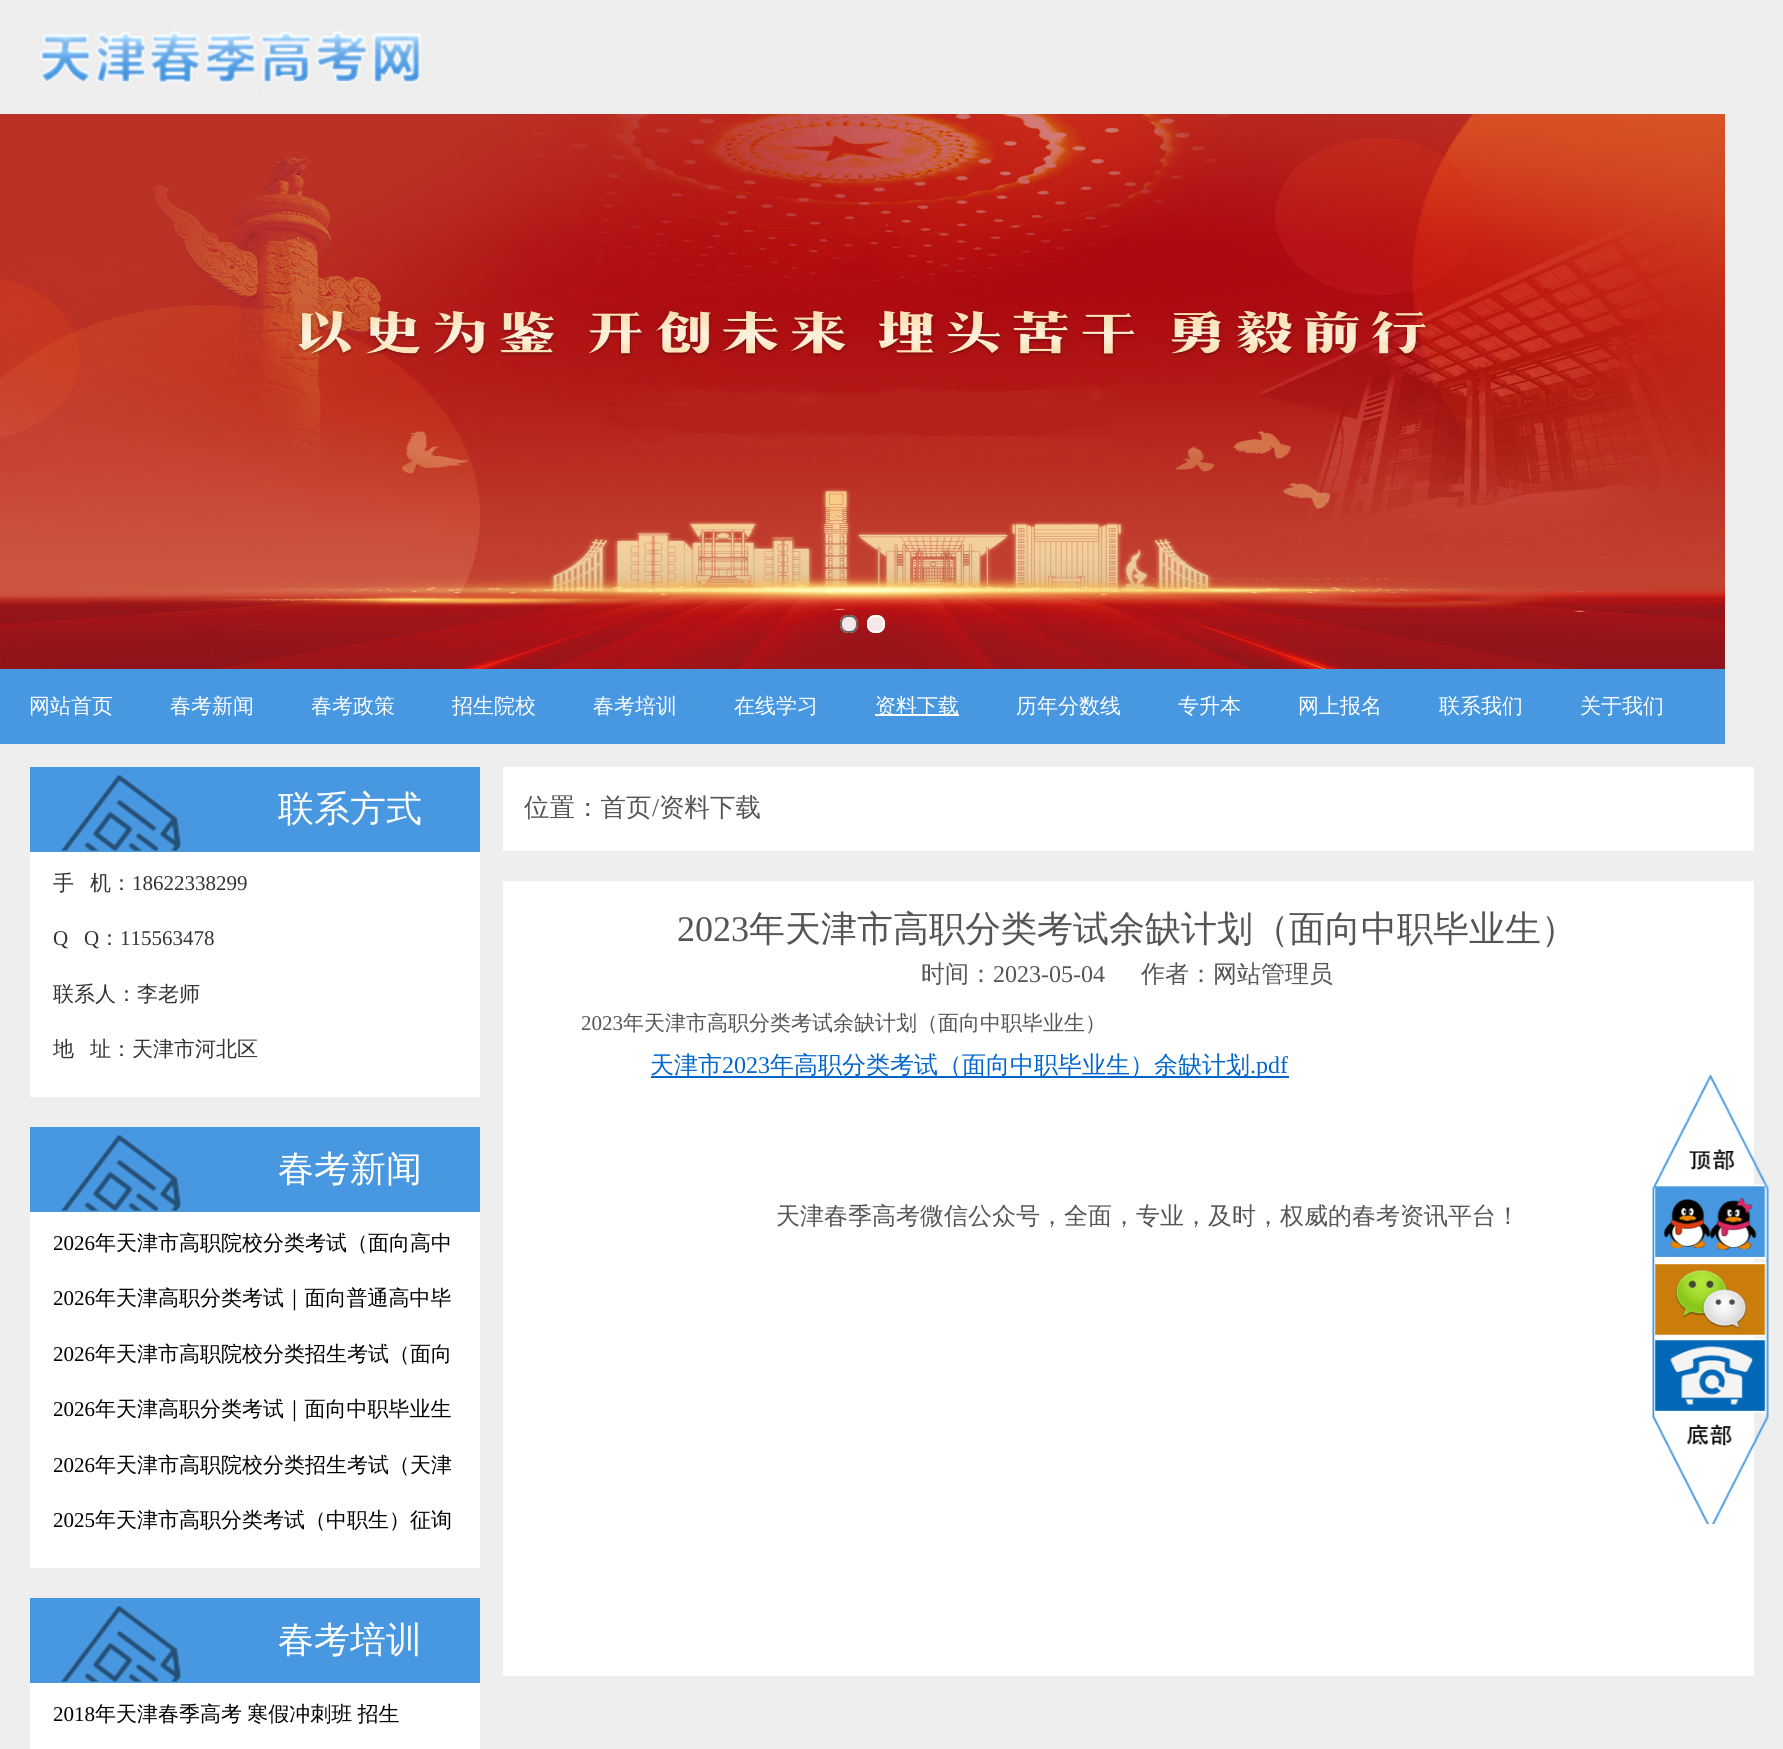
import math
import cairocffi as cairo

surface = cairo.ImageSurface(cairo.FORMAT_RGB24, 1783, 1749)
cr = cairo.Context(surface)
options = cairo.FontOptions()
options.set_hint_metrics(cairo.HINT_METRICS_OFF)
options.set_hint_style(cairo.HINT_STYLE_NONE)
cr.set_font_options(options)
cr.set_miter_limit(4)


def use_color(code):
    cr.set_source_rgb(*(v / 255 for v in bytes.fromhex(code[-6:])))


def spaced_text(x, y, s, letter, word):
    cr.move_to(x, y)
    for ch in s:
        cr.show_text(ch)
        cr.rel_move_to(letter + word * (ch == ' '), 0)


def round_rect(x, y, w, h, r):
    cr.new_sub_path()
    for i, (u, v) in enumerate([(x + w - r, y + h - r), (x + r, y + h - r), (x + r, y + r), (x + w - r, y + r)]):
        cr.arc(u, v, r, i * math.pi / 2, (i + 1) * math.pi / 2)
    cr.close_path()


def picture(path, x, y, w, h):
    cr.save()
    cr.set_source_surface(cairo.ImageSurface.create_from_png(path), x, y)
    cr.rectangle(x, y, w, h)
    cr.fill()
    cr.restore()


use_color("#eeeeee")
cr.paint()
picture("img1.png", 40, 31, 381, 63)
picture("img2.png", 0, 114, 1725, 555)
cr.set_source_rgba(1, 1, 1, 0.9)
round_rect(840, 615, 18, 18, 8)
cr.fill()
round_rect(841, 616, 16, 16, 7)
cr.set_source_rgba(0.333, 0.333, 0.333, 0.9)
cr.stroke()
cr.set_source_rgba(1, 1, 1, 0.9)
round_rect(867, 615, 18, 18, 8)
cr.fill()
round_rect(868, 616, 16, 16, 7)
cr.stroke()
use_color("#4898e1")
cr.rectangle(0, 669, 1725, 75)
cr.fill()
cr.select_font_face("WenQuanYi Zen Hei Medium")
cr.set_font_size(21)
use_color("#ffffff")
cr.move_to(29, 713)
cr.show_text("网站首页")
cr.move_to(170, 713)
cr.show_text("春考新闻")
cr.move_to(311, 713)
cr.show_text("春考政策")
cr.move_to(452, 713)
cr.show_text("招生院校")
cr.move_to(593, 713)
cr.show_text("春考培训")
cr.move_to(734, 713)
cr.show_text("在线学习")
cr.rectangle(875, 714, 84, 2)
cr.fill()
cr.move_to(875, 713)
cr.show_text("资料下载")
cr.move_to(1016, 713)
cr.show_text("历年分数线")
cr.move_to(1178, 713)
cr.show_text("专升本")
cr.move_to(1298, 713)
cr.show_text("网上报名")
cr.move_to(1439, 713)
cr.show_text("联系我们")
cr.move_to(1580, 713)
cr.show_text("关于我们")
cr.rectangle(30, 852, 450, 245)
cr.fill()
use_color("#4898e1")
cr.rectangle(30, 767, 450, 85)
cr.fill()
picture("img3.png", 61, 775, 121, 76)
cr.set_font_size(36)
use_color("#ffffff")
cr.move_to(278, 821)
cr.show_text("联系方式")
cr.set_font_size(21)
use_color("#333333")
cr.move_to(53, 890)
cr.show_text("手")
cr.move_to(90, 890)
cr.show_text("机：")
cr.select_font_face("Liberation Serif")
cr.move_to(132, 890)
cr.show_text("18622338299")
cr.move_to(53, 945)
cr.show_text("Q   Q")
cr.select_font_face("WenQuanYi Zen Hei Medium")
cr.move_to(99, 945)
cr.show_text("：")
cr.select_font_face("Liberation Serif")
cr.move_to(120, 945)
cr.show_text("115563478")
cr.select_font_face("WenQuanYi Zen Hei Medium")
cr.move_to(53, 1001)
cr.show_text("联系人：李老师")
cr.move_to(53, 1056)
cr.show_text("地")
cr.move_to(90, 1056)
cr.show_text("址：天津市河北区")
use_color("#ffffff")
cr.rectangle(30, 1212, 450, 356)
cr.fill()
use_color("#4898e1")
cr.rectangle(30, 1127, 450, 85)
cr.fill()
picture("img3.png", 61, 1135, 121, 76)
cr.set_font_size(36)
use_color("#ffffff")
cr.move_to(278, 1181)
cr.show_text("春考新闻")
cr.select_font_face("Liberation Serif")
cr.set_font_size(21)
use_color("#000000")
cr.move_to(53, 1250)
cr.show_text("2026")
cr.select_font_face("WenQuanYi Zen Hei Medium")
cr.move_to(95, 1250)
cr.show_text("年天津市高职院校分类考试（面向高中")
cr.select_font_face("Liberation Serif")
cr.move_to(53, 1305)
cr.show_text("2026")
cr.select_font_face("WenQuanYi Zen Hei Medium")
cr.move_to(95, 1305)
cr.show_text("年天津高职分类考试｜面向普通高中毕")
cr.select_font_face("Liberation Serif")
cr.move_to(53, 1361)
cr.show_text("2026")
cr.select_font_face("WenQuanYi Zen Hei Medium")
cr.move_to(95, 1361)
cr.show_text("年天津市高职院校分类招生考试（面向")
cr.select_font_face("Liberation Serif")
cr.move_to(53, 1416)
cr.show_text("2026")
cr.select_font_face("WenQuanYi Zen Hei Medium")
cr.move_to(95, 1416)
cr.show_text("年天津高职分类考试｜面向中职毕业生")
cr.select_font_face("Liberation Serif")
cr.move_to(53, 1472)
cr.show_text("2026")
cr.select_font_face("WenQuanYi Zen Hei Medium")
cr.move_to(95, 1472)
cr.show_text("年天津市高职院校分类招生考试（天津")
cr.select_font_face("Liberation Serif")
cr.move_to(53, 1527)
cr.show_text("2025")
cr.select_font_face("WenQuanYi Zen Hei Medium")
cr.move_to(95, 1527)
cr.show_text("年天津市高职分类考试（中职生）征询")
use_color("#ffffff")
cr.rectangle(30, 1683, 450, 66)
cr.fill()
use_color("#4898e1")
cr.rectangle(30, 1598, 450, 85)
cr.fill()
picture("img3.png", 61, 1606, 121, 76)
cr.set_font_size(36)
use_color("#ffffff")
cr.move_to(278, 1652)
cr.show_text("春考培训")
cr.select_font_face("Liberation Serif")
cr.set_font_size(21)
use_color("#000000")
cr.move_to(53, 1721)
cr.show_text("2018")
cr.select_font_face("WenQuanYi Zen Hei Medium")
spaced_text(95, 1721, "年天津春季高考 寒假冲刺班 招生", 0, -1)
use_color("#ffffff")
cr.rectangle(503, 767, 1251, 84)
cr.fill()
cr.set_font_size(25.5)
use_color("#555555")
cr.move_to(524, 816)
cr.show_text("位置：首页")
cr.select_font_face("Liberation Serif")
cr.move_to(652, 816)
cr.show_text("/")
cr.select_font_face("WenQuanYi Zen Hei Medium")
cr.move_to(659, 816)
cr.show_text("资料下载")
use_color("#ffffff")
cr.rectangle(503, 881, 1251, 795)
cr.fill()
cr.select_font_face("Liberation Serif")
cr.set_font_size(36)
use_color("#555555")
cr.move_to(677, 941)
cr.show_text("2023")
cr.select_font_face("WenQuanYi Zen Hei Medium")
cr.move_to(749, 941)
cr.show_text("年天津市高职分类考试余缺计划（面向中职毕业生）")
cr.set_font_size(24)
cr.move_to(921, 982)
cr.show_text("时间：")
cr.select_font_face("Liberation Serif")
cr.move_to(993, 982)
cr.show_text("2023-05-04")
cr.select_font_face("WenQuanYi Zen Hei Medium")
cr.move_to(1141, 982)
cr.show_text("作者：网站管理员")
cr.select_font_face("Liberation Serif")
cr.set_font_size(21)
cr.move_to(581, 1030)
cr.show_text("2023")
cr.select_font_face("WenQuanYi Zen Hei Medium")
cr.move_to(623, 1030)
cr.show_text("年天津市高职分类考试余缺计划（面向中职毕业生）")
cr.set_font_size(24)
use_color("#0066cc")
cr.move_to(650, 1073)
cr.show_text("天津市")
cr.select_font_face("Liberation Serif")
cr.move_to(722, 1073)
cr.show_text("2023")
cr.rectangle(651, 1076, 638, 2)
cr.fill()
cr.select_font_face("WenQuanYi Zen Hei Medium")
cr.move_to(770, 1073)
cr.show_text("年高职分类考试（面向中职毕业生）余缺计划")
cr.select_font_face("Liberation Serif")
cr.move_to(1250, 1073)
cr.show_text(".pdf")
cr.select_font_face("WenQuanYi Zen Hei Medium")
use_color("#555555")
cr.move_to(776, 1224)
cr.show_text("天津春季高考微信公众号，全面，专业，及时，权威的春考资讯平台！")
picture("img4.png", 1652, 1074, 117, 450)
surface.write_to_png("result.png")
